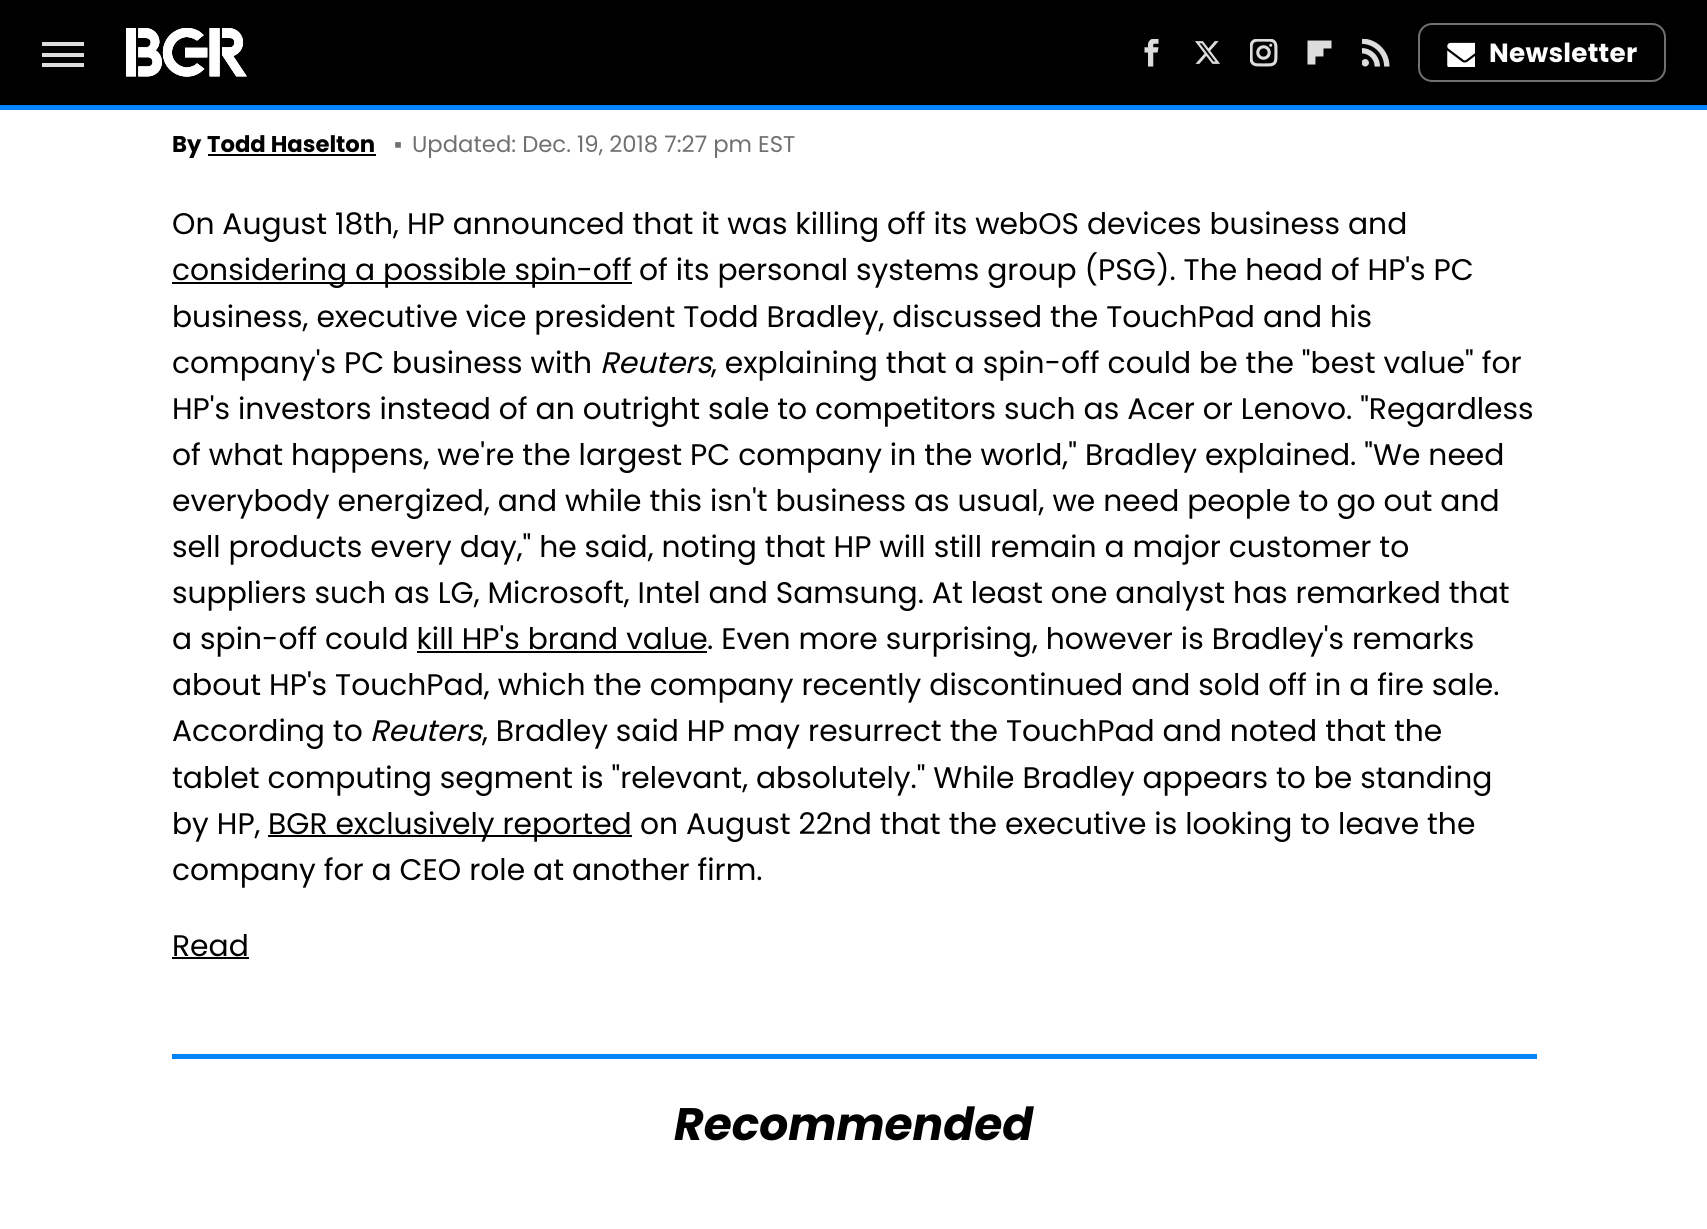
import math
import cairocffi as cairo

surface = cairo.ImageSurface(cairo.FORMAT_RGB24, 1707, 1229)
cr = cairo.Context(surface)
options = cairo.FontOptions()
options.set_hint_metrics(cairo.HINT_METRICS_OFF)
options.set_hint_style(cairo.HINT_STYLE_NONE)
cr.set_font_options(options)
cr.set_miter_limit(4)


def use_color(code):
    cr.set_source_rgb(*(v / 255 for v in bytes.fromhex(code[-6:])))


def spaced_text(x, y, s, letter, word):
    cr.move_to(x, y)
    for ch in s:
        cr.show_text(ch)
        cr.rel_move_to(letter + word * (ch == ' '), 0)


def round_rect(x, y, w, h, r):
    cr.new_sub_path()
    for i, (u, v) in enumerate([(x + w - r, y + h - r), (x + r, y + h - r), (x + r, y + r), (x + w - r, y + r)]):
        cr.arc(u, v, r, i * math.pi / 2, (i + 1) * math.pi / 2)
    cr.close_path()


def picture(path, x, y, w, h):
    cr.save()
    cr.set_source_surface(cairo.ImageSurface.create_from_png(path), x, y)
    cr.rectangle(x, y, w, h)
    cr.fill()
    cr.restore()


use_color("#ffffff")
cr.paint()
use_color("#000000")
cr.rectangle(0, 0, 1707, 105)
cr.fill()
use_color("#0284ff")
cr.rectangle(0, 105, 1707, 5)
cr.fill()
use_color("#dddddd")
cr.rectangle(42, 42, 42, 4)
cr.fill()
cr.rectangle(42, 53, 42, 4)
cr.fill()
cr.rectangle(42, 63, 42, 4)
cr.fill()
picture("img1.png", 126, 28, 121, 49)
picture("img2.png", 1144, 39, 15, 28)
picture("img3.png", 1195, 41, 25, 23)
picture("img4.png", 1250, 39, 28, 28)
picture("img5.png", 1307, 40, 25, 25)
picture("img6.png", 1362, 39, 28, 28)
round_rect(1419, 24, 246, 57, 13)
use_color("#707070")
cr.stroke()
picture("img7.png", 1447, 42, 28, 25)
cr.select_font_face("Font", cairo.FONT_SLANT_NORMAL, cairo.FONT_WEIGHT_BOLD)
cr.set_font_size(26.25)
use_color("#ffffff")
spaced_text(1489, 62, "Newsletter", 0.25, 0)
cr.set_font_size(22.75)
use_color("#000000")
cr.move_to(172, 152)
cr.show_text("By")
cr.move_to(207, 152)
cr.show_text("Todd Haselton")
cr.rectangle(208, 154, 168, 2)
cr.fill()
cr.select_font_face("Liberation Sans")
use_color("#707070")
cr.move_to(394, 152)
cr.show_text("▪")
cr.select_font_face("poppins")
cr.move_to(412, 152)
cr.show_text("Updated: Dec. 19, 2018 7:27 pm EST")
cr.set_font_size(29.75)
use_color("#000000")
cr.move_to(172, 234)
cr.show_text("On August 18th, HP announced that it was killing off its webOS devices business and")
cr.rectangle(172, 282, 460, 2)
cr.fill()
cr.move_to(172, 280)
cr.show_text("considering a possible spin-off")
cr.move_to(639, 280)
cr.show_text("of its personal systems group (PSG). The head of HP's PC")
cr.move_to(172, 327)
cr.show_text("business, executive vice president Todd Bradley, discussed the TouchPad and his")
cr.move_to(172, 373)
cr.show_text("company's PC business with")
cr.select_font_face("poppins", cairo.FONT_SLANT_ITALIC)
cr.move_to(600, 373)
cr.show_text("Reuters")
cr.select_font_face("poppins")
cr.move_to(711, 373)
cr.show_text(", explaining that a spin-off could be the \"best value\" for")
cr.move_to(172, 419)
cr.show_text("HP's investors instead of an outright sale to competitors such as Acer or Lenovo. \"Regardless")
cr.move_to(172, 465)
cr.show_text("of what happens, we're the largest PC company in the world,\" Bradley explained. \"We need")
cr.move_to(172, 511)
cr.show_text("everybody energized, and while this isn't business as usual, we need people to go out and")
cr.move_to(172, 557)
cr.show_text("sell products every day,\" he said, noting that HP will still remain a major customer to")
cr.move_to(172, 603)
cr.show_text("suppliers such as LG, Microsoft, Intel and Samsung. At least one analyst has remarked that")
cr.move_to(172, 649)
cr.show_text("a spin-off could kill HP's brand value")
cr.move_to(707, 649)
cr.show_text(". Even more surprising, however is Bradley's remarks")
cr.rectangle(417, 651, 290, 2)
cr.fill()
cr.move_to(172, 695)
cr.show_text("about HP's TouchPad, which the company recently discontinued and sold off in a fire sale.")
cr.move_to(172, 741)
cr.show_text("According to")
cr.select_font_face("poppins", cairo.FONT_SLANT_ITALIC)
cr.move_to(370, 741)
cr.show_text("Reuters")
cr.select_font_face("poppins")
cr.move_to(482, 741)
cr.show_text(", Bradley said HP may resurrect the TouchPad and noted that the")
cr.move_to(172, 788)
cr.show_text("tablet computing segment is \"relevant, absolutely.\" While Bradley appears to be standing")
cr.move_to(172, 834)
cr.show_text("by HP,")
cr.rectangle(268, 835, 364, 2)
cr.fill()
cr.move_to(268, 834)
cr.show_text("BGR exclusively reported")
cr.move_to(640, 834)
cr.show_text("on August 22nd that the executive is looking to leave the")
cr.move_to(172, 880)
cr.show_text("company for a CEO role at another firm.")
cr.move_to(172, 956)
cr.show_text("Read")
cr.rectangle(172, 957, 77, 2)
cr.fill()
use_color("#0284ff")
cr.rectangle(172, 1054, 1365, 5)
cr.fill()
cr.select_font_face("poppins", cairo.FONT_SLANT_ITALIC, cairo.FONT_WEIGHT_BOLD)
cr.set_font_size(45.5)
use_color("#000000")
cr.move_to(674, 1140)
cr.show_text("Recommended")
surface.write_to_png("result.png")
